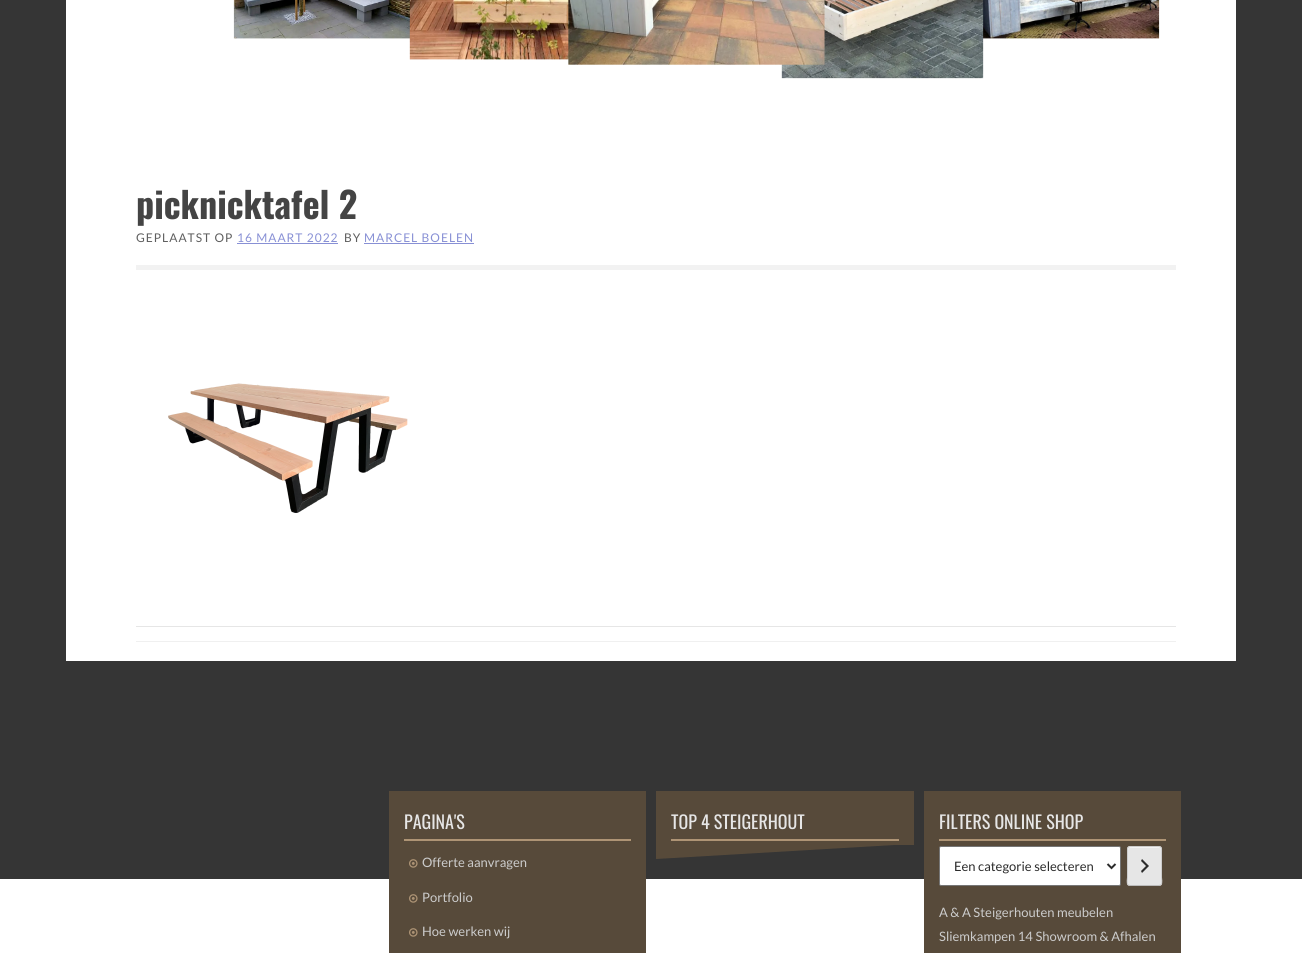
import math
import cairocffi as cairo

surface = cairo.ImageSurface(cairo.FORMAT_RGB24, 1302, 953)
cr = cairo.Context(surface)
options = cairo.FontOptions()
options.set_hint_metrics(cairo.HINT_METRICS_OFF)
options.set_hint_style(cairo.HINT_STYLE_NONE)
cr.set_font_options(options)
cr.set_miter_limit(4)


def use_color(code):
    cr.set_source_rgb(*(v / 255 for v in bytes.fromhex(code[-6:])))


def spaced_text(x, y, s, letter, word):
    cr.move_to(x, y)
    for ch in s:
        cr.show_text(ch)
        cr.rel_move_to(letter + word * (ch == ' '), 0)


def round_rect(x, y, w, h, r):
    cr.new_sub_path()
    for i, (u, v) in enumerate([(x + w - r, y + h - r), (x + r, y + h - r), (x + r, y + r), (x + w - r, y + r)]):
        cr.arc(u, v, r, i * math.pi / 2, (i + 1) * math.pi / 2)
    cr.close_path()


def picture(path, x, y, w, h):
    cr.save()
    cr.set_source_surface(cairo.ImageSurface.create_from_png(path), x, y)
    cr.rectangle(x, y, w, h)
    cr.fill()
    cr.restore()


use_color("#353535")
cr.paint()
use_color("#ffffff")
cr.rectangle(66, 0, 1170, 661)
cr.fill()
picture("img1.png", 233, 0, 177, 39)
picture("img2.png", 409, 0, 160, 60)
picture("img5.png", 983, 0, 177, 39)
picture("img4.png", 781, 0, 203, 79)
picture("img3.png", 568, 0, 257, 65)
cr.select_font_face("Oswald", cairo.FONT_SLANT_NORMAL, cairo.FONT_WEIGHT_BOLD)
cr.set_font_size(36)
use_color("#444444")
cr.move_to(136, 219)
cr.show_text("picknicktafel 2")
cr.select_font_face("Lato")
cr.set_font_size(12)
use_color("#5e5e5e")
spaced_text(136, 242, "GEPLAATST OP", 1, 0)
use_color("#8890d5")
spaced_text(237, 242, "16 MAART 2022", 1, 0)
cr.rectangle(237, 243, 101, 1)
cr.fill()
use_color("#5e5e5e")
spaced_text(344, 242, "BY", 1, 0)
use_color("#8890d5")
spaced_text(364, 242, "MARCEL BOELEN", 1, 0)
cr.rectangle(364, 243, 110, 1)
cr.fill()
use_color("#f2f2f2")
cr.rectangle(136, 265, 1040, 5)
cr.fill()
picture("img6.png", 168, 383, 240, 130)
use_color("#e6e6e6")
cr.rectangle(136, 626, 1040, 1)
cr.fill()
use_color("#f0f0f0")
cr.rectangle(136, 641, 1040, 1)
cr.fill()
use_color("#ffffff")
cr.rectangle(0, 879, 1302, 74)
cr.fill()
use_color("#574a3a")
cr.rectangle(389, 791, 257, 162)
cr.fill()
cr.select_font_face("Oswald")
cr.set_font_size(18)
use_color("#e6e6e6")
cr.move_to(404, 829)
cr.show_text("PAGINA'S")
use_color("#ae9475")
cr.rectangle(404, 839, 227, 2)
cr.fill()
picture("img7.png", 409, 859, 9, 9)
cr.select_font_face("Lato")
cr.set_font_size(13)
use_color("#cccccc")
cr.move_to(422, 867)
cr.show_text("Offerte aanvragen")
picture("img7.png", 409, 894, 9, 9)
cr.move_to(422, 902)
cr.show_text("Portfolio")
picture("img7.png", 409, 928, 9, 9)
cr.move_to(422, 936)
cr.show_text("Hoe werken wij")
use_color("#574a3a")
cr.rectangle(656, 791, 258, 54)
cr.fill()
cr.select_font_face("Oswald")
cr.set_font_size(18)
use_color("#e6e6e6")
cr.move_to(671, 829)
cr.show_text("TOP 4 STEIGERHOUT")
use_color("#ae9475")
cr.rectangle(671, 839, 228, 2)
cr.fill()
use_color("#574a3a")
cr.new_path()
cr.move_to(656, 845)
cr.line_to(894, 845)
cr.line_to(656, 859)
cr.close_path()
cr.fill()
cr.rectangle(924, 791, 257, 162)
cr.fill()
use_color("#e6e6e6")
cr.move_to(939, 829)
cr.show_text("FILTERS ONLINE SHOP")
use_color("#ae9475")
cr.rectangle(939, 839, 227, 2)
cr.fill()
use_color("#ffffff")
round_rect(939.5, 846.5, 181, 39, 1.5)
cr.fill_preserve()
use_color("#767676")
cr.set_line_width(1)
cr.stroke()
cr.new_path()
cr.move_to(1107.5, 864)
cr.line_to(1111.5, 868)
cr.line_to(1115.5, 864)
use_color("#2b2b2b")
cr.set_line_width(2)
cr.stroke()
cr.select_font_face("Lato")
cr.set_font_size(13)
cr.move_to(954, 871)
cr.show_text("Een categorie selecteren")
use_color("#e6e6e6")
round_rect(1127, 846, 35, 40, 3)
cr.fill()
use_color("#f3f3f3")
cr.new_path()
cr.move_to(1130, 847)
cr.curve_to(1128, 847, 1128, 848.5, 1128, 850)
cr.line_to(1129, 848)
cr.line_to(1160, 848)
cr.line_to(1161, 850)
cr.curve_to(1161, 848.5, 1161, 847, 1159, 847)
cr.close_path()
cr.fill()
cr.new_path()
cr.move_to(1161, 885)
cr.curve_to(1160.5, 885, 1159.5, 885.5, 1159, 885.5)
cr.line_to(1130, 885.5)
cr.curve_to(1129.5, 885.5, 1128.5, 885, 1128, 885)
use_color("#bbbbbb")
cr.set_line_width(1)
cr.stroke()
cr.new_path()
cr.move_to(1128, 885)
cr.curve_to(1126.5, 883, 1127.5, 878, 1127.5, 877.5)
cr.line_to(1127.5, 854.5)
cr.curve_to(1127.5, 846, 1126.5, 846.5, 1135, 846.5)
cr.line_to(1154, 846.5)
cr.curve_to(1162.5, 846.5, 1161.5, 846, 1161.5, 854.5)
cr.line_to(1161.5, 877.5)
cr.curve_to(1161.5, 878, 1162.5, 883, 1161, 885)
use_color("#cccccc")
cr.stroke()
picture("img8.png", 1141, 859, 8, 14)
cr.move_to(939, 917)
cr.show_text("A & A Steigerhouten meubelen")
cr.move_to(939, 941)
cr.show_text("Sliemkampen 14 Showroom & Afhalen")
surface.write_to_png("result.png")
